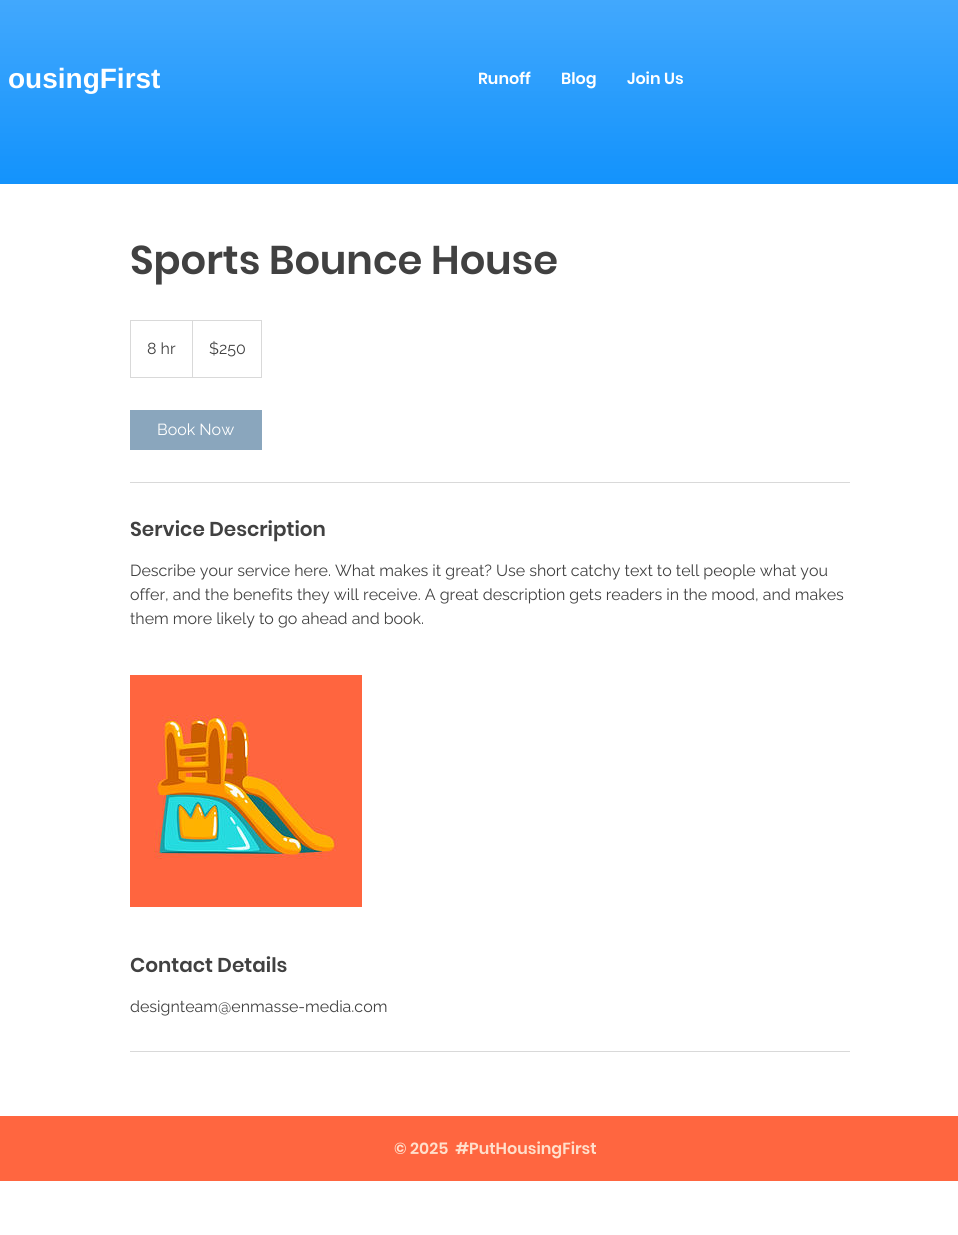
import math
import cairocffi as cairo

surface = cairo.ImageSurface(cairo.FORMAT_RGB24, 958, 1235)
cr = cairo.Context(surface)
options = cairo.FontOptions()
options.set_hint_metrics(cairo.HINT_METRICS_OFF)
options.set_hint_style(cairo.HINT_STYLE_NONE)
cr.set_font_options(options)
cr.set_miter_limit(4)


def use_color(code):
    cr.set_source_rgb(*(v / 255 for v in bytes.fromhex(code[-6:])))


def picture(path, x, y, w, h):
    cr.save()
    cr.set_source_surface(cairo.ImageSurface.create_from_png(path), x, y)
    cr.rectangle(x, y, w, h)
    cr.fill()
    cr.restore()


use_color("#ffffff")
cr.paint()
use_color("#008afc")
cr.rectangle(0, 0, 958, 184)
cr.fill()
picture("img1.png", 0, 0, 958, 184)
cr.select_font_face("Liberation Sans", cairo.FONT_SLANT_NORMAL, cairo.FONT_WEIGHT_BOLD)
cr.set_font_size(28)
use_color("#ffffff")
cr.move_to(8, 88)
cr.show_text("ousingFirst")
cr.select_font_face("Poppins SemiBold")
cr.set_font_size(16)
cr.move_to(478, 84)
cr.show_text("Runoff")
cr.move_to(561, 84)
cr.show_text("Blog")
cr.move_to(627, 84)
cr.show_text("Join Us")
cr.set_font_size(40)
use_color("#414141")
cr.move_to(130, 274)
cr.show_text("Sports Bounce House")
cr.rectangle(130.5, 320.5, 131, 57)
use_color("#d9d9d9")
cr.set_line_width(1)
cr.stroke()
cr.select_font_face("Raleway")
cr.set_font_size(16)
use_color("#414141")
cr.move_to(147, 354)
cr.show_text("8 hr")
use_color("#d9d9d9")
cr.new_path()
cr.move_to(192, 377)
cr.line_to(192, 320)
cr.line_to(193, 321)
cr.line_to(193, 377)
cr.close_path()
cr.fill()
use_color("#414141")
cr.move_to(209, 354)
cr.show_text("$250")
use_color("#8aa6bd")
cr.rectangle(130, 410, 132, 40)
cr.fill()
use_color("#ffffff")
cr.move_to(157, 435)
cr.show_text("Book Now")
use_color("#d9d9d9")
cr.rectangle(130, 482, 720, 1)
cr.fill()
cr.select_font_face("Poppins SemiBold")
cr.set_font_size(20)
use_color("#414141")
cr.move_to(130, 536)
cr.show_text("Service Description")
cr.select_font_face("Raleway")
cr.set_font_size(16)
cr.move_to(130, 576)
cr.show_text("Describe your service here. What makes it great? Use short catchy text to tell people what you")
cr.move_to(130, 600)
cr.show_text("offer, and the benefits they will receive. A great description gets readers in the mood, and makes")
cr.move_to(130, 624)
cr.show_text("them more likely to go ahead and book.")
picture("img2.png", 130, 675, 232, 232)
picture("img3.png", 152, 712, 186, 149)
cr.select_font_face("Poppins SemiBold")
cr.set_font_size(20)
cr.move_to(130, 972)
cr.show_text("Contact Details")
cr.select_font_face("Raleway")
cr.set_font_size(16)
cr.move_to(130, 1012)
cr.show_text("designteam@enmasse-media.com")
use_color("#d9d9d9")
cr.rectangle(130, 1051, 720, 1)
cr.fill()
use_color("#ff6640")
cr.rectangle(0, 1116, 958, 65)
cr.fill()
cr.select_font_face("Poppins SemiBold")
use_color("#ffdfcb")
cr.move_to(394, 1154)
cr.show_text("© 2025  #PutHousingFirst")
surface.write_to_png("result.png")
